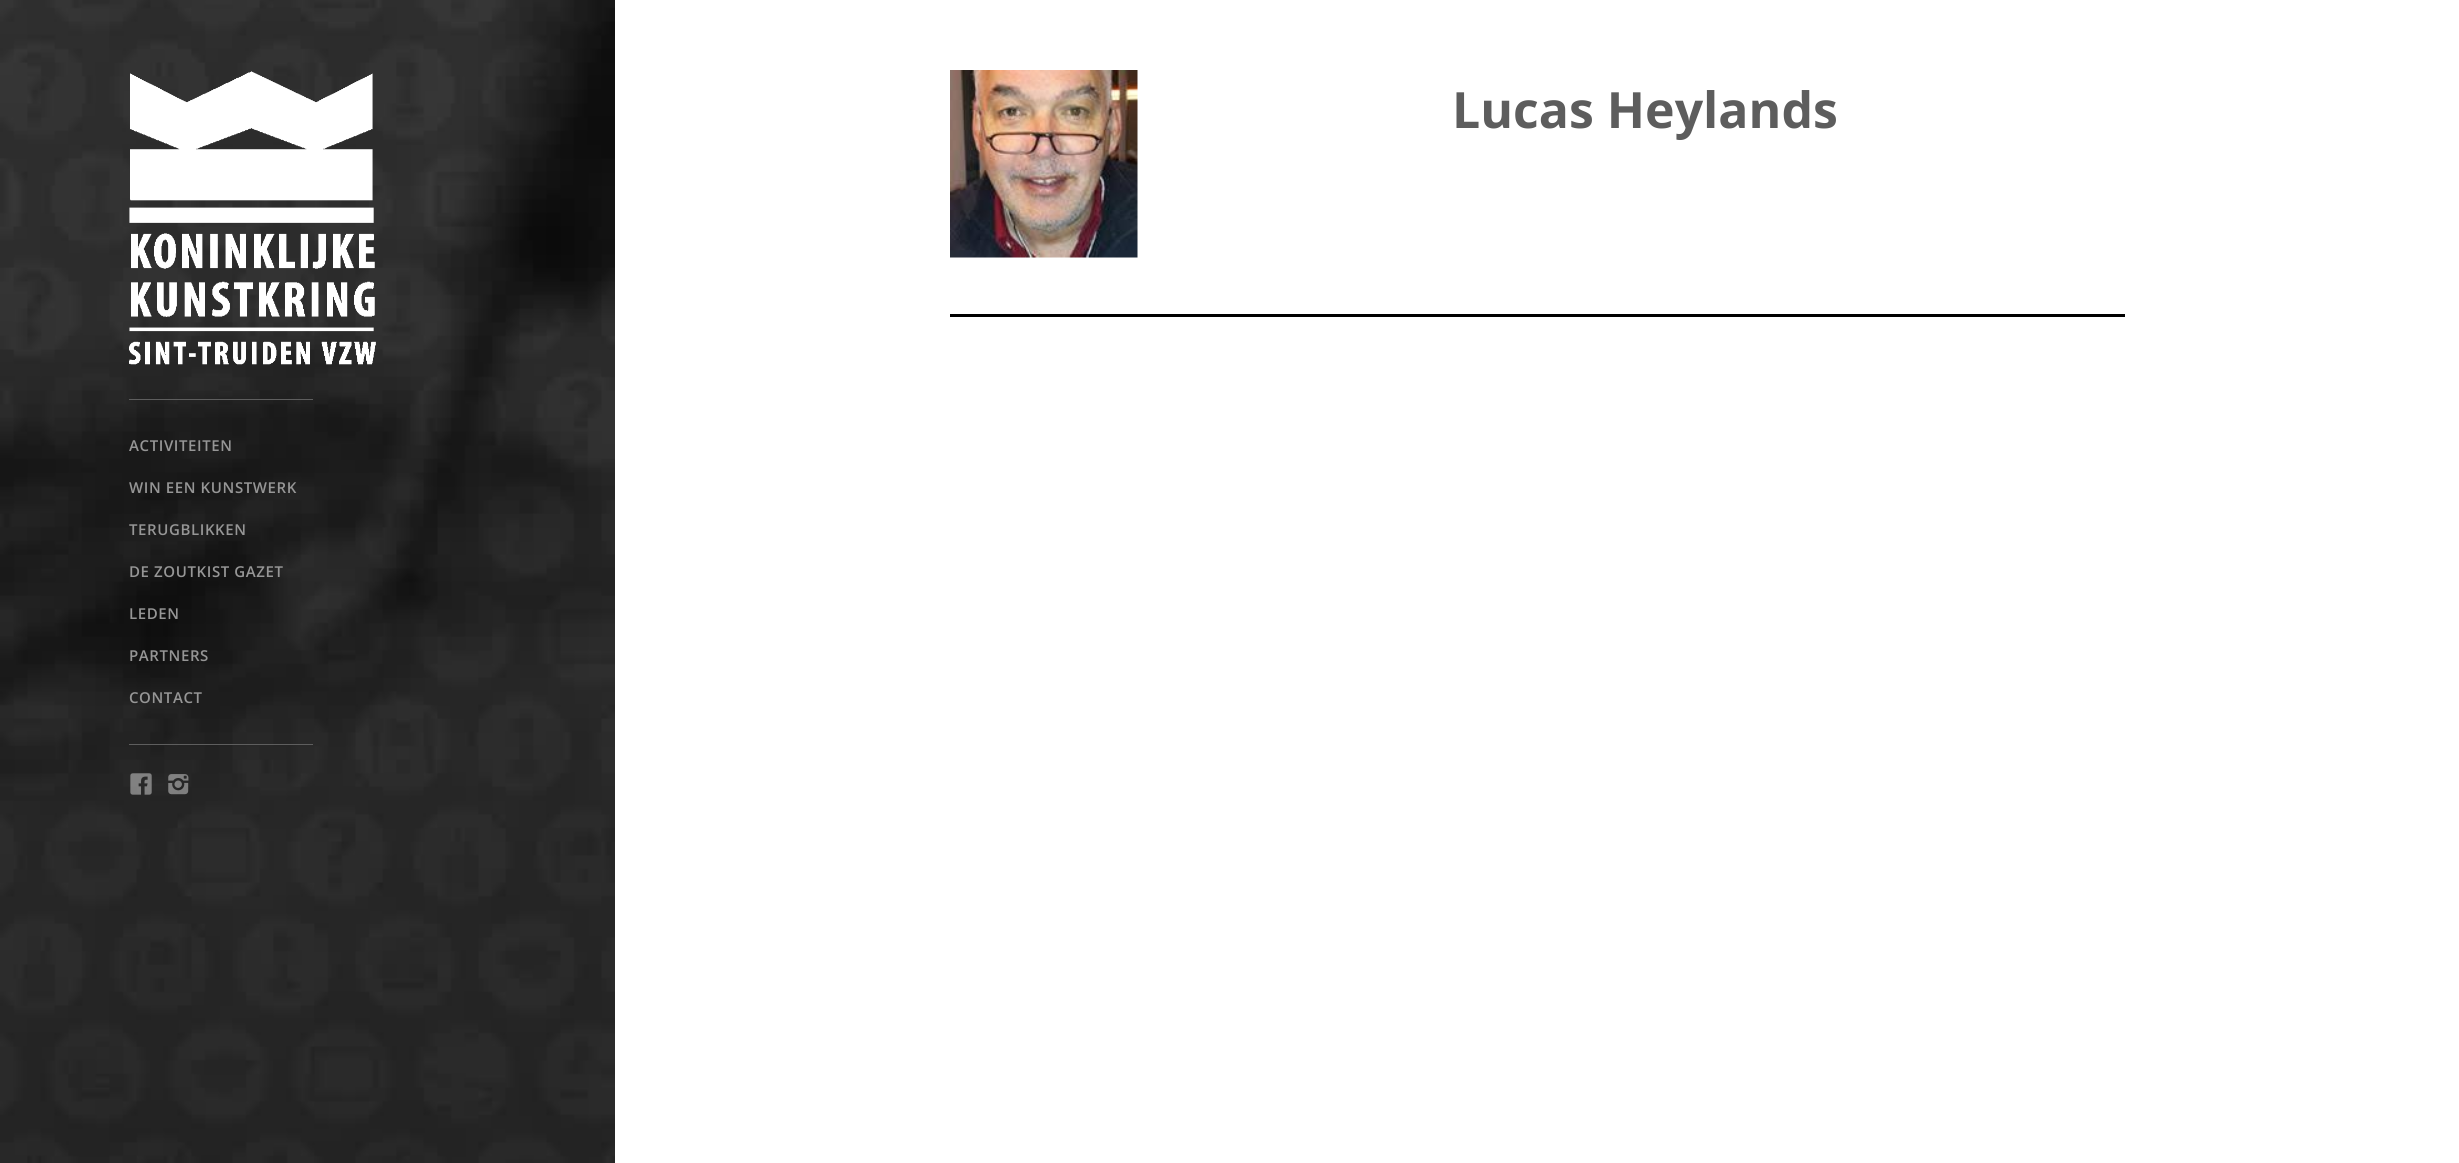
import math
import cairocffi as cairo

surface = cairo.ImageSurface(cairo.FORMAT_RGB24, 2459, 1163)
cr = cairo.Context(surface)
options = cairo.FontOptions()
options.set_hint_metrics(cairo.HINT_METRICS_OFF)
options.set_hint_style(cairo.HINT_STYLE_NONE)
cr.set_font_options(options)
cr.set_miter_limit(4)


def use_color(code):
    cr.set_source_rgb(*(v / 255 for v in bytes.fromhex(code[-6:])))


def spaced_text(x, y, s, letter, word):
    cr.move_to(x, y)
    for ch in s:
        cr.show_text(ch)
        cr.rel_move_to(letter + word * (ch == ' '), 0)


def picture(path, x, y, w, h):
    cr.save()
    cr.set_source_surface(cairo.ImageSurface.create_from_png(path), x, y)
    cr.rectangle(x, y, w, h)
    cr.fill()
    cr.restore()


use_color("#ffffff")
cr.paint()
use_color("#000000")
cr.rectangle(950, 314, 1175, 3)
cr.fill()
picture("img1.png", 950, 70, 188, 188)
cr.select_font_face("Open Sans", cairo.FONT_SLANT_NORMAL, cairo.FONT_WEIGHT_BOLD)
cr.set_font_size(50)
use_color("#5d5d5d")
cr.move_to(1452, 128)
cr.show_text("Lucas Heylands")
picture("img2.png", 0, 0, 615, 1163)
picture("img3.png", 129, 71, 247, 294)
use_color("#5e5e5e")
cr.rectangle(129, 399, 184, 1)
cr.fill()
cr.select_font_face("Open Sans SemiBold")
cr.set_font_size(15)
use_color("#969696")
spaced_text(129, 451, "ACTIVITEITEN", 0.6, 0)
spaced_text(129, 493, "WIN EEN KUNSTWERK", 0.6, 0)
spaced_text(129, 535, "TERUGBLIKKEN", 0.6, 0)
spaced_text(129, 577, "DE ZOUTKIST GAZET", 0.6, 0)
spaced_text(129, 619, "LEDEN", 0.6, 0)
spaced_text(129, 661, "PARTNERS", 0.6, 0)
spaced_text(129, 703, "CONTACT", 0.6, 0)
use_color("#5e5e5e")
cr.rectangle(129, 744, 184, 1)
cr.fill()
picture("img4.png", 130, 773, 22, 22)
picture("img5.png", 168, 774, 21, 21)
surface.write_to_png("result.png")
